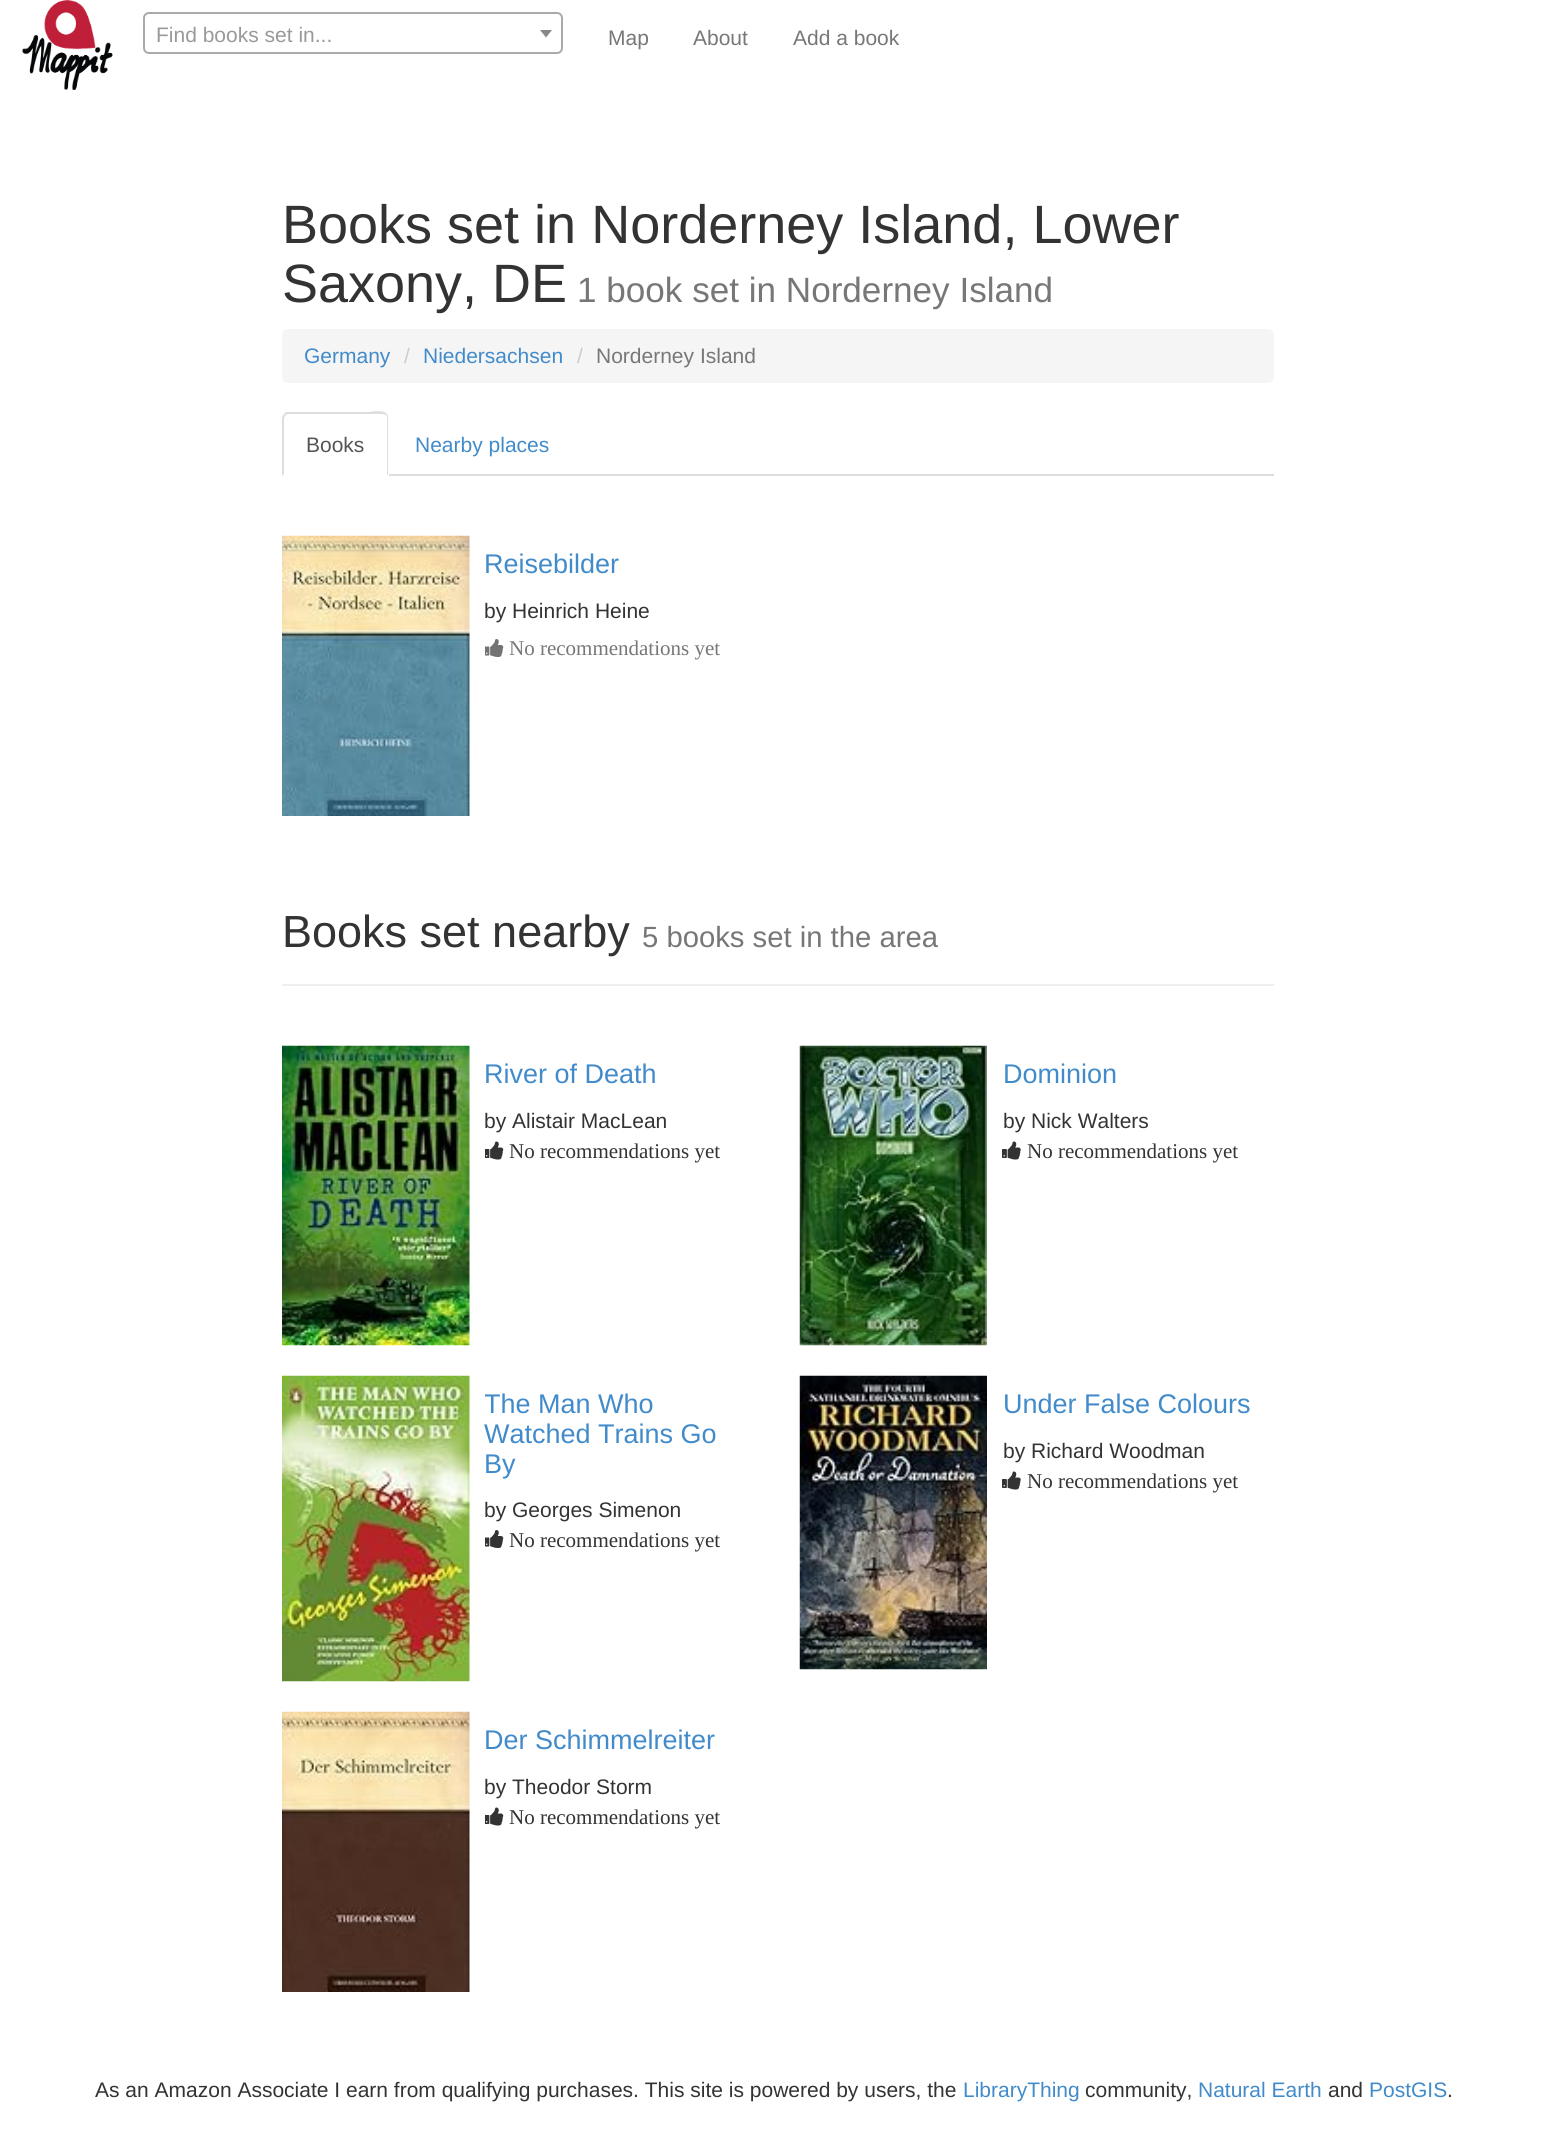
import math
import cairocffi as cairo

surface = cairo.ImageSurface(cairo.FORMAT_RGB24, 1555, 2134)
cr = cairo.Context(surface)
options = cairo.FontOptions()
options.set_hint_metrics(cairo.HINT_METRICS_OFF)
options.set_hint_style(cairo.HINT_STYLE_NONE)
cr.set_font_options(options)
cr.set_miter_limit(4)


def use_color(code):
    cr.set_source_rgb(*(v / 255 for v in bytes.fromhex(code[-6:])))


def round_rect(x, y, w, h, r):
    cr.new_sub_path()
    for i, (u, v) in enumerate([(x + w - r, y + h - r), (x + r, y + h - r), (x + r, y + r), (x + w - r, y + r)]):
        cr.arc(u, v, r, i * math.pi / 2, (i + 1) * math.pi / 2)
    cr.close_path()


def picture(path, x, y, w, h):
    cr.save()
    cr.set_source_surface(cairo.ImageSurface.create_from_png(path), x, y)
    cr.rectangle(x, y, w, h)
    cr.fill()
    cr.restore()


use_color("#ffffff")
cr.paint()
picture("img1.png", 22, 0, 91, 90)
round_rect(144, 13, 418, 40, 5)
use_color("#aaaaaa")
cr.stroke()
cr.select_font_face("Liberation Sans")
cr.set_font_size(21)
use_color("#999999")
cr.move_to(156, 42)
cr.show_text("Find books set in...")
use_color("#888888")
cr.new_path()
cr.move_to(540, 30)
cr.line_to(552, 30)
cr.line_to(546, 37.5)
cr.close_path()
cr.fill()
use_color("#777777")
cr.move_to(608, 45)
cr.show_text("Map")
cr.move_to(693, 45)
cr.show_text("About")
cr.move_to(793, 45)
cr.show_text("Add a book")
cr.set_font_size(54)
use_color("#333333")
cr.move_to(282, 243)
cr.show_text("Books set in Norderney Island, Lower")
cr.move_to(282, 302)
cr.show_text("Saxony, DE")
cr.set_font_size(35.1)
use_color("#777777")
cr.move_to(577, 302)
cr.show_text("1 book set in Norderney Island")
use_color("#f5f5f5")
round_rect(282, 329, 992, 54, 6)
cr.fill()
cr.set_font_size(21)
use_color("#428bca")
cr.move_to(304, 363)
cr.show_text("Germany")
use_color("#cccccc")
cr.move_to(404, 363)
cr.show_text("/")
use_color("#428bca")
cr.move_to(423, 363)
cr.show_text("Niedersachsen")
use_color("#cccccc")
cr.move_to(577, 363)
cr.show_text("/")
use_color("#777777")
cr.move_to(596, 363)
cr.show_text("Norderney Island")
use_color("#dddddd")
cr.rectangle(389, 474, 885, 2)
cr.fill()
cr.new_path()
cr.move_to(288, 414)
cr.curve_to(287, 414, 286, 415, 285, 416)
cr.line_to(284, 414)
cr.line_to(286, 412)
cr.line_to(368, 412)
cr.curve_to(370, 412, 383, 409, 387, 414)
cr.line_to(386, 415)
cr.curve_to(385, 415, 384, 414, 382, 414)
cr.close_path()
cr.fill()
cr.new_path()
cr.move_to(387, 414)
cr.curve_to(388, 415, 388, 417, 388, 418)
cr.line_to(388, 475)
cr.line_to(387, 474)
cr.line_to(387, 417)
cr.line_to(386, 415)
cr.close_path()
cr.fill()
cr.new_path()
cr.move_to(282, 476)
cr.line_to(284, 474)
cr.line_to(284, 418)
cr.line_to(285, 416)
cr.line_to(284, 414)
cr.curve_to(283, 415, 282, 417, 282, 418)
cr.close_path()
cr.fill()
use_color("#555555")
cr.move_to(306, 452)
cr.show_text("Books")
use_color("#428bca")
cr.move_to(415, 452)
cr.show_text("Nearby places")
picture("img2.png", 282, 535, 188, 281)
cr.set_font_size(27)
cr.move_to(484, 573)
cr.show_text("Reisebilder")
cr.set_font_size(21)
use_color("#333333")
cr.move_to(484, 618)
cr.show_text("by Heinrich Heine")
picture("img3.png", 485, 639, 19, 18)
cr.select_font_face("Liberation Serif")
use_color("#777777")
cr.move_to(509, 655)
cr.show_text("No recommendations yet")
use_color("#eeeeee")
cr.rectangle(282, 984, 992, 2)
cr.fill()
cr.select_font_face("Liberation Sans")
cr.set_font_size(45)
use_color("#333333")
cr.move_to(282, 947)
cr.show_text("Books set nearby")
cr.set_font_size(29.25)
use_color("#777777")
cr.move_to(642, 947)
cr.show_text("5 books set in the area")
picture("img4.png", 282, 1045, 188, 301)
cr.set_font_size(27)
use_color("#428bca")
cr.move_to(484, 1083)
cr.show_text("River of Death")
cr.set_font_size(21)
use_color("#333333")
cr.move_to(484, 1128)
cr.show_text("by Alistair MacLean")
picture("img5.png", 485, 1141, 19, 19)
cr.select_font_face("Liberation Serif")
cr.move_to(509, 1158)
cr.show_text("No recommendations yet")
picture("img6.png", 799, 1045, 188, 301)
cr.select_font_face("Liberation Sans")
cr.set_font_size(27)
use_color("#428bca")
cr.move_to(1003, 1083)
cr.show_text("Dominion")
cr.set_font_size(21)
use_color("#333333")
cr.move_to(1003, 1128)
cr.show_text("by Nick Walters")
picture("img7.png", 1002, 1141, 19, 19)
cr.select_font_face("Liberation Serif")
cr.move_to(1027, 1158)
cr.show_text("No recommendations yet")
picture("img8.png", 282, 1375, 188, 307)
cr.save()
cr.rectangle(485, 1376, 270, 178)
cr.clip()
cr.select_font_face("Liberation Sans")
cr.set_font_size(27)
use_color("#428bca")
cr.move_to(484, 1413)
cr.show_text("The Man Who")
cr.restore()
cr.select_font_face("Liberation Sans")
cr.set_font_size(27)
use_color("#428bca")
cr.move_to(484, 1443)
cr.show_text("Watched Trains Go")
cr.move_to(484, 1473)
cr.show_text("By")
cr.set_font_size(21)
use_color("#333333")
cr.move_to(484, 1517)
cr.show_text("by Georges Simenon")
picture("img9.png", 485, 1530, 19, 18)
cr.select_font_face("Liberation Serif")
cr.move_to(509, 1547)
cr.show_text("No recommendations yet")
picture("img10.png", 799, 1375, 188, 295)
cr.select_font_face("Liberation Sans")
cr.set_font_size(27)
use_color("#428bca")
cr.move_to(1003, 1413)
cr.show_text("Under False Colours")
cr.set_font_size(21)
use_color("#333333")
cr.move_to(1003, 1458)
cr.show_text("by Richard Woodman")
picture("img7.png", 1002, 1471, 19, 19)
cr.select_font_face("Liberation Serif")
cr.move_to(1027, 1488)
cr.show_text("No recommendations yet")
picture("img11.png", 282, 1711, 188, 281)
cr.select_font_face("Liberation Sans")
cr.set_font_size(27)
use_color("#428bca")
cr.move_to(484, 1749)
cr.show_text("Der Schimmelreiter")
cr.set_font_size(21)
use_color("#333333")
cr.move_to(484, 1794)
cr.show_text("by Theodor Storm")
picture("img5.png", 485, 1807, 19, 19)
cr.select_font_face("Liberation Serif")
cr.move_to(509, 1824)
cr.show_text("No recommendations yet")
cr.select_font_face("Liberation Sans")
cr.move_to(95, 2097)
cr.show_text("As an Amazon Associate I earn from qualifying purchases. This site is powered by users, the")
use_color("#428bca")
cr.move_to(963, 2097)
cr.show_text("LibraryThing")
use_color("#333333")
cr.move_to(1085, 2097)
cr.show_text("community,")
use_color("#428bca")
cr.move_to(1198, 2097)
cr.show_text("Natural Earth")
use_color("#333333")
cr.move_to(1328, 2097)
cr.show_text("and")
use_color("#428bca")
cr.move_to(1369, 2097)
cr.show_text("PostGIS")
use_color("#333333")
cr.move_to(1447, 2097)
cr.show_text(".")
surface.write_to_png("result.png")
